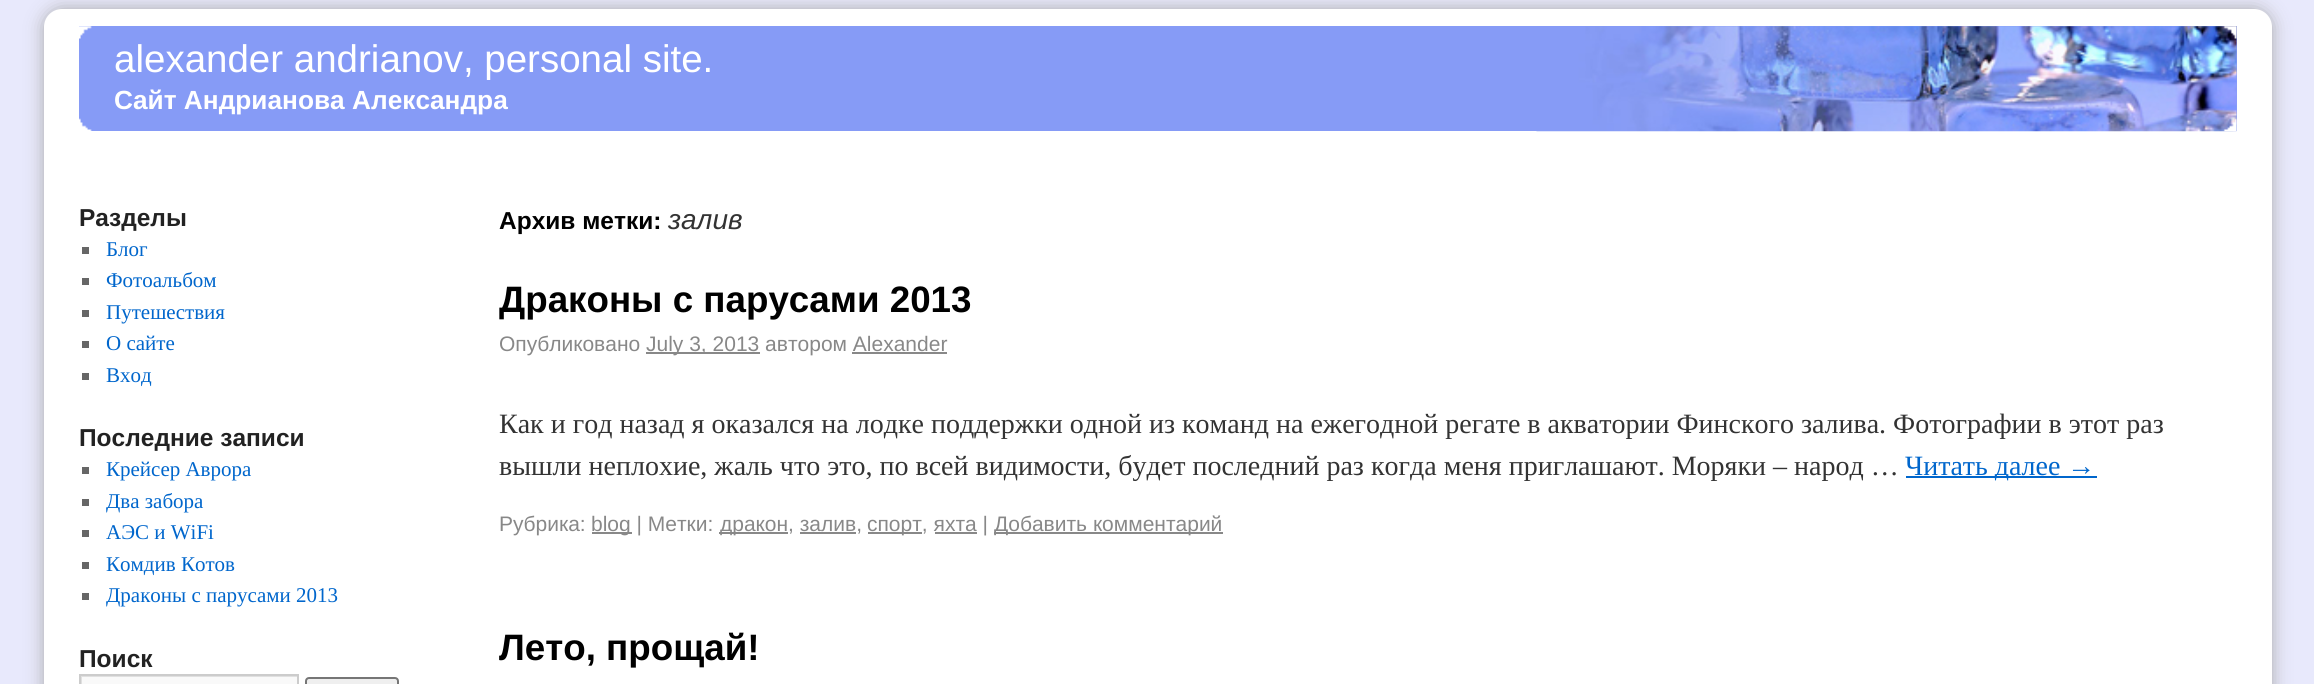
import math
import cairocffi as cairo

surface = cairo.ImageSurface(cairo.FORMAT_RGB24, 2314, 684)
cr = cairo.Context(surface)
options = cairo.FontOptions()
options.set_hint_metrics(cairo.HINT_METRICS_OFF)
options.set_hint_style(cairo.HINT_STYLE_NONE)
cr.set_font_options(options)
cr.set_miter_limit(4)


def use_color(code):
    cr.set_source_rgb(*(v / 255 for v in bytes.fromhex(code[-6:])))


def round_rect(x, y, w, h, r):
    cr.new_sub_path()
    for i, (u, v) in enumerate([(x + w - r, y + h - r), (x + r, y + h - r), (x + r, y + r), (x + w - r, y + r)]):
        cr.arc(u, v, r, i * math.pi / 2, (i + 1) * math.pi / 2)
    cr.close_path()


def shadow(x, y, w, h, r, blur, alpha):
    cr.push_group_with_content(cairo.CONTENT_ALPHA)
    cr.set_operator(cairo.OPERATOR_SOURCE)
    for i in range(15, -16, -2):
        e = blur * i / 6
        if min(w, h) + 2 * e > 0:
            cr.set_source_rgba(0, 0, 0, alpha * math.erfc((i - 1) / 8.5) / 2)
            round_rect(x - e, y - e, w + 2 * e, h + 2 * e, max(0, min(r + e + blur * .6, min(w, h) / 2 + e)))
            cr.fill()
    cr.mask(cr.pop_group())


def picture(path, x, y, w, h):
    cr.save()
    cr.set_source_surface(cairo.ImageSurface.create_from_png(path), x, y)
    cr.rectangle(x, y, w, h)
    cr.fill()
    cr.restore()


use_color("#e8e9fc")
cr.paint()
use_color("#aaaaaa")
shadow(44, 9, 2228, 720, 18, 9, 1)
use_color("#ffffff")
round_rect(44, 9, 2228, 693, 18)
cr.fill()
use_color("#869bf6")
cr.rectangle(79, 26, 2158, 105)
cr.fill()
picture("img1.png", 1536, 26, 701, 106)
picture("img2.png", 79, 26, 13, 13)
picture("img3.png", 2223, 26, 14, 13)
picture("img4.png", 79, 118, 13, 13)
picture("img5.png", 2223, 118, 14, 14)
cr.select_font_face("Liberation Sans")
cr.set_font_size(38.5)
use_color("#ffffff")
cr.move_to(114, 72)
cr.show_text("alexander andrianov, personal site.")
cr.select_font_face("Liberation Sans", cairo.FONT_SLANT_NORMAL, cairo.FONT_WEIGHT_BOLD)
cr.set_font_size(26.25)
cr.move_to(114, 109)
cr.show_text("Сайт Андрианова Александра")
cr.set_font_size(24.5)
use_color("#222222")
cr.move_to(79, 226)
cr.show_text("Разделы")
use_color("#666666")
cr.rectangle(82, 247, 7, 7)
cr.fill()
cr.select_font_face("Liberation Serif")
cr.set_font_size(21)
use_color("#0066cc")
cr.move_to(106, 256)
cr.show_text("Блог")
use_color("#666666")
cr.rectangle(82, 278, 7, 7)
cr.fill()
use_color("#0066cc")
cr.move_to(106, 287)
cr.show_text("Фотоальбом")
use_color("#666666")
cr.rectangle(82, 310, 7, 7)
cr.fill()
use_color("#0066cc")
cr.move_to(106, 319)
cr.show_text("Путешествия")
use_color("#666666")
cr.rectangle(82, 341, 7, 7)
cr.fill()
use_color("#0066cc")
cr.move_to(106, 350)
cr.show_text("О сайте")
use_color("#666666")
cr.rectangle(82, 373, 7, 7)
cr.fill()
use_color("#0066cc")
cr.move_to(106, 382)
cr.show_text("Вход")
cr.select_font_face("Liberation Sans", cairo.FONT_SLANT_NORMAL, cairo.FONT_WEIGHT_BOLD)
cr.set_font_size(24.5)
use_color("#222222")
cr.move_to(79, 446)
cr.show_text("Последние записи")
use_color("#666666")
cr.rectangle(82, 467, 7, 7)
cr.fill()
cr.select_font_face("Liberation Serif")
cr.set_font_size(21)
use_color("#0066cc")
cr.move_to(106, 476)
cr.show_text("Крейсер Аврора")
use_color("#666666")
cr.rectangle(82, 499, 7, 7)
cr.fill()
use_color("#0066cc")
cr.move_to(106, 508)
cr.show_text("Два забора")
use_color("#666666")
cr.rectangle(82, 530, 7, 7)
cr.fill()
use_color("#0066cc")
cr.move_to(106, 539)
cr.show_text("АЭС и WiFi")
use_color("#666666")
cr.rectangle(82, 562, 7, 7)
cr.fill()
use_color("#0066cc")
cr.move_to(106, 571)
cr.show_text("Комдив Котов")
use_color("#666666")
cr.rectangle(82, 593, 7, 7)
cr.fill()
use_color("#0066cc")
cr.move_to(106, 602)
cr.show_text("Драконы с парусами 2013")
cr.select_font_face("Liberation Sans", cairo.FONT_SLANT_NORMAL, cairo.FONT_WEIGHT_BOLD)
cr.set_font_size(24.5)
use_color("#222222")
cr.move_to(79, 667)
cr.show_text("Поиск")
use_color("#f9f9f9")
cr.rectangle(82, 677, 215, 7)
cr.fill()
cr.save()
cr.rectangle(81, 676, 217, 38)
cr.clip()
use_color("#e0e0e0")
cr.set_fill_rule(cairo.FILL_RULE_EVEN_ODD)
cr.new_path()
cr.move_to(-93, 502)
cr.line_to(471, 502)
cr.line_to(471, 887)
cr.line_to(-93, 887)
cr.close_path()
cr.move_to(82, 677)
cr.line_to(299, 677)
cr.line_to(299, 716)
cr.line_to(82, 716)
cr.close_path()
cr.fill()
cr.restore()
cr.rectangle(80, 675, 218, 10)
use_color("#cccccc")
cr.stroke()
use_color("#efefef")
round_rect(306, 678, 92, 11, 3)
cr.fill_preserve()
use_color("#767676")
cr.stroke()
use_color("#000000")
cr.move_to(499, 229)
cr.show_text("Архив метки:")
cr.select_font_face("Liberation Sans", cairo.FONT_SLANT_ITALIC)
cr.set_font_size(28)
use_color("#333333")
cr.move_to(668, 229)
cr.show_text("залив")
cr.select_font_face("Liberation Sans", cairo.FONT_SLANT_NORMAL, cairo.FONT_WEIGHT_BOLD)
cr.set_font_size(36.75)
use_color("#000000")
cr.move_to(499, 312)
cr.show_text("Драконы с парусами 2013")
cr.select_font_face("Liberation Sans")
cr.set_font_size(21)
use_color("#888888")
cr.move_to(499, 351)
cr.show_text("Опубликовано")
cr.rectangle(646, 352, 114, 2)
cr.fill()
cr.move_to(646, 351)
cr.show_text("July 3, 2013 автором Alexander")
cr.rectangle(852, 352, 95, 2)
cr.fill()
cr.select_font_face("Liberation Serif")
cr.set_font_size(28)
use_color("#333333")
cr.move_to(499, 433)
cr.show_text("Как и год назад я оказался на лодке поддержки одной из команд на ежегодной регате в акватории Финского залива. Фотографии в этот раз")
cr.move_to(499, 475)
cr.show_text("вышли неплохие, жаль что это, по всей видимости, будет последний раз когда меня приглашают. Моряки – народ …")
use_color("#0066cc")
cr.rectangle(1906, 476, 191, 2)
cr.fill()
cr.move_to(1905, 475)
cr.show_text("Читать далее →")
cr.select_font_face("Liberation Sans")
cr.set_font_size(21)
use_color("#888888")
cr.move_to(499, 531)
cr.show_text("Рубрика:")
cr.rectangle(592, 532, 40, 2)
cr.fill()
cr.move_to(591, 531)
cr.show_text("blog | Метки:")
cr.rectangle(719, 532, 69, 2)
cr.fill()
cr.move_to(720, 531)
cr.show_text("дракон, залив,")
cr.rectangle(800, 532, 56, 2)
cr.fill()
cr.rectangle(868, 532, 54, 2)
cr.fill()
cr.move_to(867, 531)
cr.show_text("спорт, яхта |")
cr.rectangle(935, 532, 42, 2)
cr.fill()
cr.rectangle(994, 532, 229, 2)
cr.fill()
cr.move_to(994, 531)
cr.show_text("Добавить комментарий")
cr.select_font_face("Liberation Sans", cairo.FONT_SLANT_NORMAL, cairo.FONT_WEIGHT_BOLD)
cr.set_font_size(36.75)
use_color("#000000")
cr.move_to(499, 660)
cr.show_text("Лето, прощай!")
surface.write_to_png("result.png")
